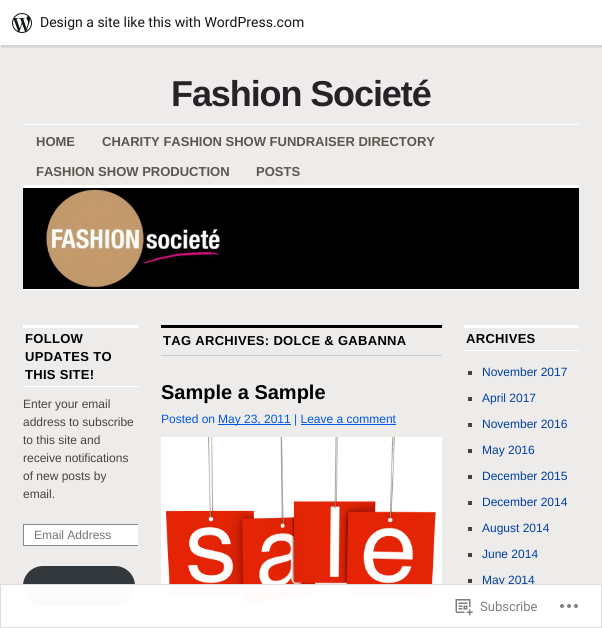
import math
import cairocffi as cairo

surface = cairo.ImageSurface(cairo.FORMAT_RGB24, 602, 628)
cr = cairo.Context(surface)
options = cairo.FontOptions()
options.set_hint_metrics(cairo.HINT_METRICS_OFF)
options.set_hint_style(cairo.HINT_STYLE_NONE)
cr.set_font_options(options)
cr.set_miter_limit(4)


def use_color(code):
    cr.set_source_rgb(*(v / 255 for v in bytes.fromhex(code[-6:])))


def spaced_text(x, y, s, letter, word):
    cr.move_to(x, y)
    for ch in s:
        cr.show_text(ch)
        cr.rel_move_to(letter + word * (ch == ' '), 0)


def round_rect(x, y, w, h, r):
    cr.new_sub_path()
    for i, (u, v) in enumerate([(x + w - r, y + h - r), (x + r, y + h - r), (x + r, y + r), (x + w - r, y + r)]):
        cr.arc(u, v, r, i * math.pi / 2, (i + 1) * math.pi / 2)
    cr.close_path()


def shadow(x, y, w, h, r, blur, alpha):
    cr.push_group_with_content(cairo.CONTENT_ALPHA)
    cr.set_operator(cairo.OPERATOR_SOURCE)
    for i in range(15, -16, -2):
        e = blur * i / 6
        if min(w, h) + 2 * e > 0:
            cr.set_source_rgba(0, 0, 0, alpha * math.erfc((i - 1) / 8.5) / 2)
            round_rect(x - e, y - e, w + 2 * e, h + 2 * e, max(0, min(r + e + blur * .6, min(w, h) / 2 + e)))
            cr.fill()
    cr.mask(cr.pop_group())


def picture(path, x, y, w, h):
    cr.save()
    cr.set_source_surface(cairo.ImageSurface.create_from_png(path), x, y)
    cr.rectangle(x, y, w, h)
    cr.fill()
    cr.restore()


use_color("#eeeceb")
cr.paint()
use_color("#000000")
shadow(0, 1, 602, 45, 0, 1, 0.05)
cr.set_source_rgba(0, 0, 0, 0.08)
cr.new_path()
cr.move_to(1, 45)
cr.line_to(1, 48)
cr.line_to(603, 48)
cr.line_to(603, 3)
cr.line_to(602, 3)
cr.line_to(602, 45)
cr.close_path()
cr.fill()
use_color("#ffffff")
cr.rectangle(0, 0, 602, 45)
cr.fill()
picture("img1.png", 12, 13, 20, 20)
cr.select_font_face("Roboto")
cr.set_font_size(14)
use_color("#171717")
cr.move_to(40, 27)
cr.show_text("Design a site like this with WordPress.com")
cr.select_font_face("Liberation Sans", cairo.FONT_SLANT_NORMAL, cairo.FONT_WEIGHT_BOLD)
cr.set_font_size(36)
use_color("#282128")
spaced_text(171, 106, "Fashion Societé", -1.1, 0)
use_color("#ffffff")
cr.rectangle(23, 124, 556, 1)
cr.fill()
cr.select_font_face("Arimo", cairo.FONT_SLANT_NORMAL, cairo.FONT_WEIGHT_BOLD)
cr.set_font_size(13)
use_color("#5e564e")
cr.move_to(36, 146)
cr.show_text("HOME")
cr.move_to(102, 146)
cr.show_text("CHARITY FASHION SHOW FUNDRAISER DIRECTORY")
cr.move_to(36, 176)
cr.show_text("FASHION SHOW PRODUCTION")
cr.move_to(256, 176)
cr.show_text("POSTS")
use_color("#ffffff")
cr.rectangle(23, 185, 556, 3)
cr.fill()
picture("img2.png", 23, 188, 556, 101)
cr.rectangle(23, 289, 556, 1)
cr.fill()
cr.rectangle(23, 325, 115, 3)
cr.fill()
cr.rectangle(23, 386, 115, 1)
cr.fill()
cr.select_font_face("Liberation Sans", cairo.FONT_SLANT_NORMAL, cairo.FONT_WEIGHT_BOLD)
use_color("#000000")
spaced_text(25, 343, "FOLLOW", 0.3, 0)
spaced_text(25, 361, "UPDATES TO", 0.3, 0)
spaced_text(25, 379, "THIS SITE!", 0.3, 0)
cr.select_font_face("Arimo")
cr.set_font_size(12)
use_color("#4a433a")
cr.move_to(23, 408)
cr.show_text("Enter your email")
cr.move_to(23, 426)
cr.show_text("address to subscribe")
cr.move_to(23, 444)
cr.show_text("to this site and")
cr.move_to(23, 462)
cr.show_text("receive notifications")
cr.move_to(23, 480)
cr.show_text("of new posts by")
cr.move_to(23, 498)
cr.show_text("email.")
use_color("#ffffff")
cr.rectangle(24, 525, 114, 20)
cr.fill()
cr.save()
cr.rectangle(23, 325, 115, 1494)
cr.clip()
cr.rectangle(23.5, 524.5, 130, 21)
use_color("#888888")
cr.set_line_width(1)
cr.stroke()
cr.restore()
use_color("#757575")
cr.move_to(34, 539)
cr.show_text("Email Address")
use_color("#32373c")
round_rect(23, 566, 112, 40, 20)
cr.fill()
use_color("#ffffff")
cr.rectangle(23, 627, 115, 1)
cr.fill()
use_color("#000000")
cr.rectangle(161, 325, 281, 3)
cr.fill()
use_color("#cccccc")
cr.rectangle(161, 355, 281, 1)
cr.fill()
cr.select_font_face("Liberation Sans", cairo.FONT_SLANT_NORMAL, cairo.FONT_WEIGHT_BOLD)
cr.set_font_size(13)
use_color("#000000")
spaced_text(163, 345, "TAG ARCHIVES: DOLCE & GABANNA", 0.3, 0)
cr.set_font_size(20)
cr.move_to(161, 399)
cr.show_text("Sample a Sample")
cr.select_font_face("Arimo")
cr.set_font_size(12)
use_color("#0057e5")
cr.move_to(161, 423)
cr.show_text("Posted on")
cr.rectangle(218, 424, 73, 1)
cr.fill()
cr.move_to(218, 423)
cr.show_text("May 23, 2011 | Leave a comment")
cr.rectangle(301, 424, 95, 1)
cr.fill()
picture("img3.png", 161, 437, 281, 191)
use_color("#ffffff")
cr.rectangle(464, 325, 115, 3)
cr.fill()
cr.rectangle(464, 350, 115, 1)
cr.fill()
cr.select_font_face("Liberation Sans", cairo.FONT_SLANT_NORMAL, cairo.FONT_WEIGHT_BOLD)
cr.set_font_size(13)
use_color("#000000")
spaced_text(466, 343, "ARCHIVES", 0.3, 0)
use_color("#4a433a")
cr.rectangle(468, 371, 4, 4)
cr.fill()
cr.select_font_face("Arimo")
cr.set_font_size(12)
use_color("#003ea3")
cr.move_to(482, 376)
cr.show_text("November 2017")
use_color("#4a433a")
cr.rectangle(468, 397, 4, 4)
cr.fill()
use_color("#003ea3")
cr.move_to(482, 402)
cr.show_text("April 2017")
use_color("#4a433a")
cr.rectangle(468, 423, 4, 4)
cr.fill()
use_color("#003ea3")
cr.move_to(482, 428)
cr.show_text("November 2016")
use_color("#4a433a")
cr.rectangle(468, 449, 4, 4)
cr.fill()
use_color("#003ea3")
cr.move_to(482, 454)
cr.show_text("May 2016")
use_color("#4a433a")
cr.rectangle(468, 475, 4, 4)
cr.fill()
use_color("#003ea3")
cr.move_to(482, 480)
cr.show_text("December 2015")
use_color("#4a433a")
cr.rectangle(468, 501, 4, 4)
cr.fill()
use_color("#003ea3")
cr.move_to(482, 506)
cr.show_text("December 2014")
use_color("#4a433a")
cr.rectangle(468, 527, 4, 4)
cr.fill()
use_color("#003ea3")
cr.move_to(482, 532)
cr.show_text("August 2014")
use_color("#4a433a")
cr.rectangle(468, 553, 4, 4)
cr.fill()
use_color("#003ea3")
cr.move_to(482, 558)
cr.show_text("June 2014")
use_color("#4a433a")
cr.rectangle(468, 579, 4, 4)
cr.fill()
use_color("#003ea3")
cr.move_to(482, 584)
cr.show_text("May 2014")
use_color("#4a433a")
cr.rectangle(468, 605, 4, 4)
cr.fill()
cr.set_source_rgba(1, 1, 1, 0.98)
cr.rectangle(0, 584, 602, 44)
cr.fill()
cr.rectangle(0.5, 584.5, 601, 43)
cr.set_source_rgba(0.863, 0.863, 0.871, 0.98)
cr.set_line_width(1)
cr.stroke()
picture("img4.png", 455, 599, 18, 17)
cr.select_font_face("Roboto")
cr.set_font_size(13)
use_color("#7b7f84")
cr.move_to(480, 611)
cr.show_text("Subscribe")
picture("img5.png", 560, 604, 18, 4)
surface.write_to_png("result.png")
